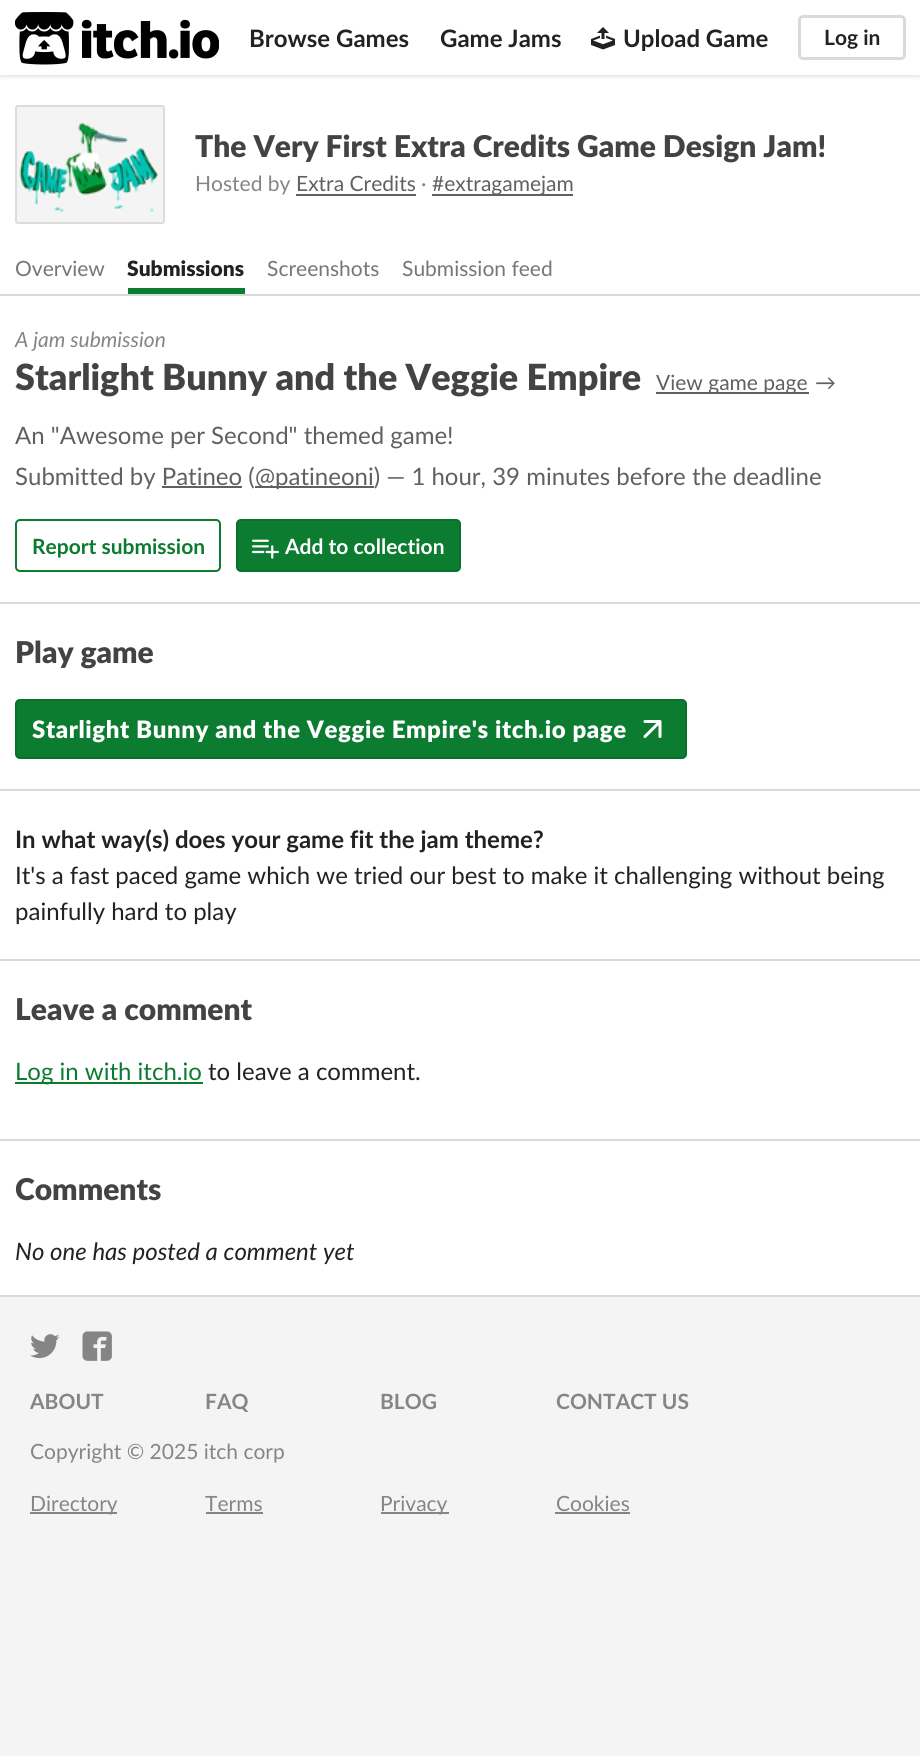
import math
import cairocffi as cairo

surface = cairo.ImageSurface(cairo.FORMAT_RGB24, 920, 1756)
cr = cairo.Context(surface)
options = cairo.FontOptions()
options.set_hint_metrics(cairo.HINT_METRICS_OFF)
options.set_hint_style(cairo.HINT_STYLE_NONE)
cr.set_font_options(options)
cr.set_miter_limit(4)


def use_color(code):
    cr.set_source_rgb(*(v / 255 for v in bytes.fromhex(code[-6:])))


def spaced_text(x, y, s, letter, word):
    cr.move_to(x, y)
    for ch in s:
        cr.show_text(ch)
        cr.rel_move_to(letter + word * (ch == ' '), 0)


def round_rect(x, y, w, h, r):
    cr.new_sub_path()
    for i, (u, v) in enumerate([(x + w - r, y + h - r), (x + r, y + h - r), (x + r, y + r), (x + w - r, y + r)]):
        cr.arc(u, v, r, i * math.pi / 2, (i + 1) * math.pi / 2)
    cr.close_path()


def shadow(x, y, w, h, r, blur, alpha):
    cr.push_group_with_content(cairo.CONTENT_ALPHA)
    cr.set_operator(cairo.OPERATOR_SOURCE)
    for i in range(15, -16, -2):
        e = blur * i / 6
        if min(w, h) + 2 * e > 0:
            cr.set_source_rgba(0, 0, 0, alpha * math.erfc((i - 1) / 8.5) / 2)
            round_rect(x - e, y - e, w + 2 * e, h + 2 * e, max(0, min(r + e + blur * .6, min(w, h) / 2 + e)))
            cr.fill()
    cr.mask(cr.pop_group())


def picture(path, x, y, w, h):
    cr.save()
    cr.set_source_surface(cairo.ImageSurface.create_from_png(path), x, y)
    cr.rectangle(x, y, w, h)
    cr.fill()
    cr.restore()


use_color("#f4f4f4")
cr.paint()
use_color("#ffffff")
cr.rectangle(0, 75, 920, 1220)
cr.fill()
use_color("#000000")
shadow(0, 2, 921, 75, 0, 1.5, 0.1)
use_color("#ffffff")
cr.rectangle(0, 0, 920, 75)
cr.fill()
picture("img1.png", 15, 12, 204, 53)
cr.select_font_face("Lato", cairo.FONT_SLANT_NORMAL, cairo.FONT_WEIGHT_BOLD)
cr.set_font_size(24)
use_color("#222222")
cr.move_to(249, 47)
cr.show_text("Browse Games")
cr.move_to(440, 47)
cr.show_text("Game Jams")
picture("img2.png", 591, 27, 24, 23)
cr.move_to(623, 47)
cr.show_text("Upload Game")
round_rect(799.5, 16.5, 105, 42, 3.5)
use_color("#dadada")
cr.set_line_width(3)
cr.stroke()
cr.set_font_size(21)
use_color("#222222")
cr.move_to(824, 45)
cr.show_text("Log in")
use_color("#dadada")
cr.rectangle(0, 1295, 920, 2)
cr.fill()
cr.rectangle(0, 294, 920, 2)
cr.fill()
use_color("#f4f4f4")
round_rect(15, 105, 150, 119, 3)
cr.fill()
round_rect(16, 106, 148, 117, 2)
cr.set_source_rgba(0, 0, 0, 0.1)
cr.set_line_width(2)
cr.stroke()
picture("img3.png", 18, 122, 141, 90)
cr.select_font_face("Lato Black")
cr.set_font_size(30)
use_color("#434343")
cr.move_to(195, 157)
cr.show_text("The Very First Extra Credits Game Design Jam!")
cr.select_font_face("Lato")
cr.set_font_size(21)
use_color("#858585")
cr.move_to(195, 191)
cr.show_text("Hosted by")
use_color("#606060")
cr.move_to(296, 191)
cr.show_text("Extra Credits")
cr.rectangle(296, 194, 120, 2)
cr.fill()
use_color("#858585")
cr.move_to(421, 191)
cr.show_text("·")
use_color("#606060")
cr.rectangle(432, 194, 141, 2)
cr.fill()
cr.move_to(432, 191)
cr.show_text("#extragamejam")
use_color("#767676")
cr.move_to(15, 276)
cr.show_text("Overview")
use_color("#0c7c31")
cr.rectangle(128, 288, 117, 6)
cr.fill()
cr.select_font_face("Lato Black")
use_color("#222222")
cr.move_to(127, 276)
cr.show_text("Submissions")
cr.select_font_face("Lato")
use_color("#767676")
cr.move_to(267, 276)
cr.show_text("Screenshots")
cr.move_to(402, 276)
cr.show_text("Submission feed")
use_color("#dadada")
cr.rectangle(0, 602, 920, 2)
cr.fill()
cr.select_font_face("Lato", cairo.FONT_SLANT_ITALIC)
use_color("#858585")
cr.move_to(15, 347)
cr.show_text("A jam submission")
cr.select_font_face("Lato Black")
cr.set_font_size(36)
use_color("#434343")
cr.move_to(15, 390)
cr.show_text("Starlight Bunny and the Veggie Empire")
use_color("#606060")
cr.rectangle(656, 392, 153, 2)
cr.fill()
cr.select_font_face("Lato")
cr.set_font_size(21)
cr.move_to(656, 390)
cr.show_text("View game page")
cr.move_to(815, 390)
cr.show_text("→")
cr.set_font_size(24)
cr.move_to(15, 444)
cr.show_text("An \"Awesome per Second\" themed game!")
cr.move_to(15, 485)
cr.show_text("Submitted by Patineo (")
cr.rectangle(255, 486, 119, 2)
cr.fill()
cr.move_to(255, 485)
cr.show_text("@patineoni) — 1 hour, 39 minutes before the deadline")
cr.rectangle(162, 486, 80, 2)
cr.fill()
round_rect(16, 520, 204, 51, 4)
use_color("#0c7c31")
cr.stroke()
cr.select_font_face("Lato", cairo.FONT_SLANT_NORMAL, cairo.FONT_WEIGHT_BOLD)
cr.set_font_size(21)
use_color("#0b7b30")
cr.move_to(32, 554)
cr.show_text("Report submission")
use_color("#0c7c31")
round_rect(236, 519, 225, 53, 5)
cr.fill()
round_rect(237, 520, 223, 51, 4)
cr.set_source_rgba(0, 0, 0, 0.1)
cr.stroke()
picture("img4.png", 252, 539, 27, 20)
use_color("#ffffff")
cr.move_to(285, 554)
cr.show_text("Add to collection")
use_color("#dadada")
cr.rectangle(0, 789, 920, 2)
cr.fill()
cr.select_font_face("Lato Black")
cr.set_font_size(30)
use_color("#434343")
cr.move_to(15, 663)
cr.show_text("Play game")
use_color("#0c7c31")
round_rect(15, 699, 672, 60, 5)
cr.fill()
round_rect(16, 700, 670, 58, 4)
cr.set_source_rgba(0, 0, 0, 0.1)
cr.stroke()
cr.set_font_size(24)
use_color("#ffffff")
spaced_text(32, 738, "Starlight Bunny and the Veggie Empire's itch.io page", 0.6, 0)
cr.new_path()
cr.move_to(645, 736.5)
cr.line_to(660, 721.5)
cr.move_to(645, 721.5)
cr.line_to(660, 721.5)
cr.line_to(660, 736.5)
cr.set_line_width(3)
cr.set_line_cap(cairo.LINE_CAP_ROUND)
cr.set_line_join(cairo.LINE_JOIN_ROUND)
cr.stroke()
use_color("#dadada")
cr.rectangle(0, 959, 920, 2)
cr.fill()
cr.select_font_face("Lato", cairo.FONT_SLANT_NORMAL, cairo.FONT_WEIGHT_BOLD)
use_color("#222222")
cr.move_to(15, 848)
cr.show_text("In what way(s) does your game fit the jam theme?")
cr.select_font_face("Lato")
cr.move_to(15, 884)
cr.show_text("It's a fast paced game which we tried our best to make it challenging without being")
cr.move_to(15, 920)
cr.show_text("painfully hard to play")
use_color("#dadada")
cr.rectangle(0, 1139, 920, 2)
cr.fill()
cr.select_font_face("Lato Black")
cr.set_font_size(30)
use_color("#434343")
cr.move_to(15, 1020)
cr.show_text("Leave a comment")
use_color("#0b7b30")
cr.rectangle(15, 1082, 188, 2)
cr.fill()
cr.select_font_face("Lato")
cr.set_font_size(24)
cr.move_to(15, 1080)
cr.show_text("Log in with itch.io")
use_color("#222222")
cr.move_to(208, 1080)
cr.show_text("to leave a comment.")
cr.select_font_face("Lato Black")
cr.set_font_size(30)
use_color("#434343")
cr.move_to(15, 1200)
cr.show_text("Comments")
cr.select_font_face("Lato", cairo.FONT_SLANT_ITALIC)
cr.set_font_size(24)
use_color("#222222")
cr.move_to(15, 1260)
cr.show_text("No one has posted a comment yet")
picture("img5.png", 30, 1334, 30, 25)
picture("img6.png", 82, 1331, 30, 30)
cr.select_font_face("Lato", cairo.FONT_SLANT_NORMAL, cairo.FONT_WEIGHT_BOLD)
cr.set_font_size(21)
use_color("#858585")
cr.move_to(30, 1409)
cr.show_text("ABOUT")
cr.move_to(205, 1409)
cr.show_text("FAQ")
cr.move_to(380, 1409)
cr.show_text("BLOG")
cr.move_to(556, 1409)
cr.show_text("CONTACT US")
cr.select_font_face("Lato")
cr.move_to(30, 1459)
cr.show_text("Copyright © 2025 itch corp")
cr.rectangle(30, 1512, 87, 2)
cr.fill()
cr.move_to(30, 1511)
cr.show_text("Directory")
cr.move_to(205, 1511)
cr.show_text("Terms")
cr.rectangle(206, 1512, 57, 2)
cr.fill()
cr.rectangle(381, 1512, 68, 2)
cr.fill()
cr.move_to(380, 1511)
cr.show_text("Privacy")
cr.move_to(556, 1511)
cr.show_text("Cookies")
cr.rectangle(555, 1512, 75, 2)
cr.fill()
surface.write_to_png("result.png")
